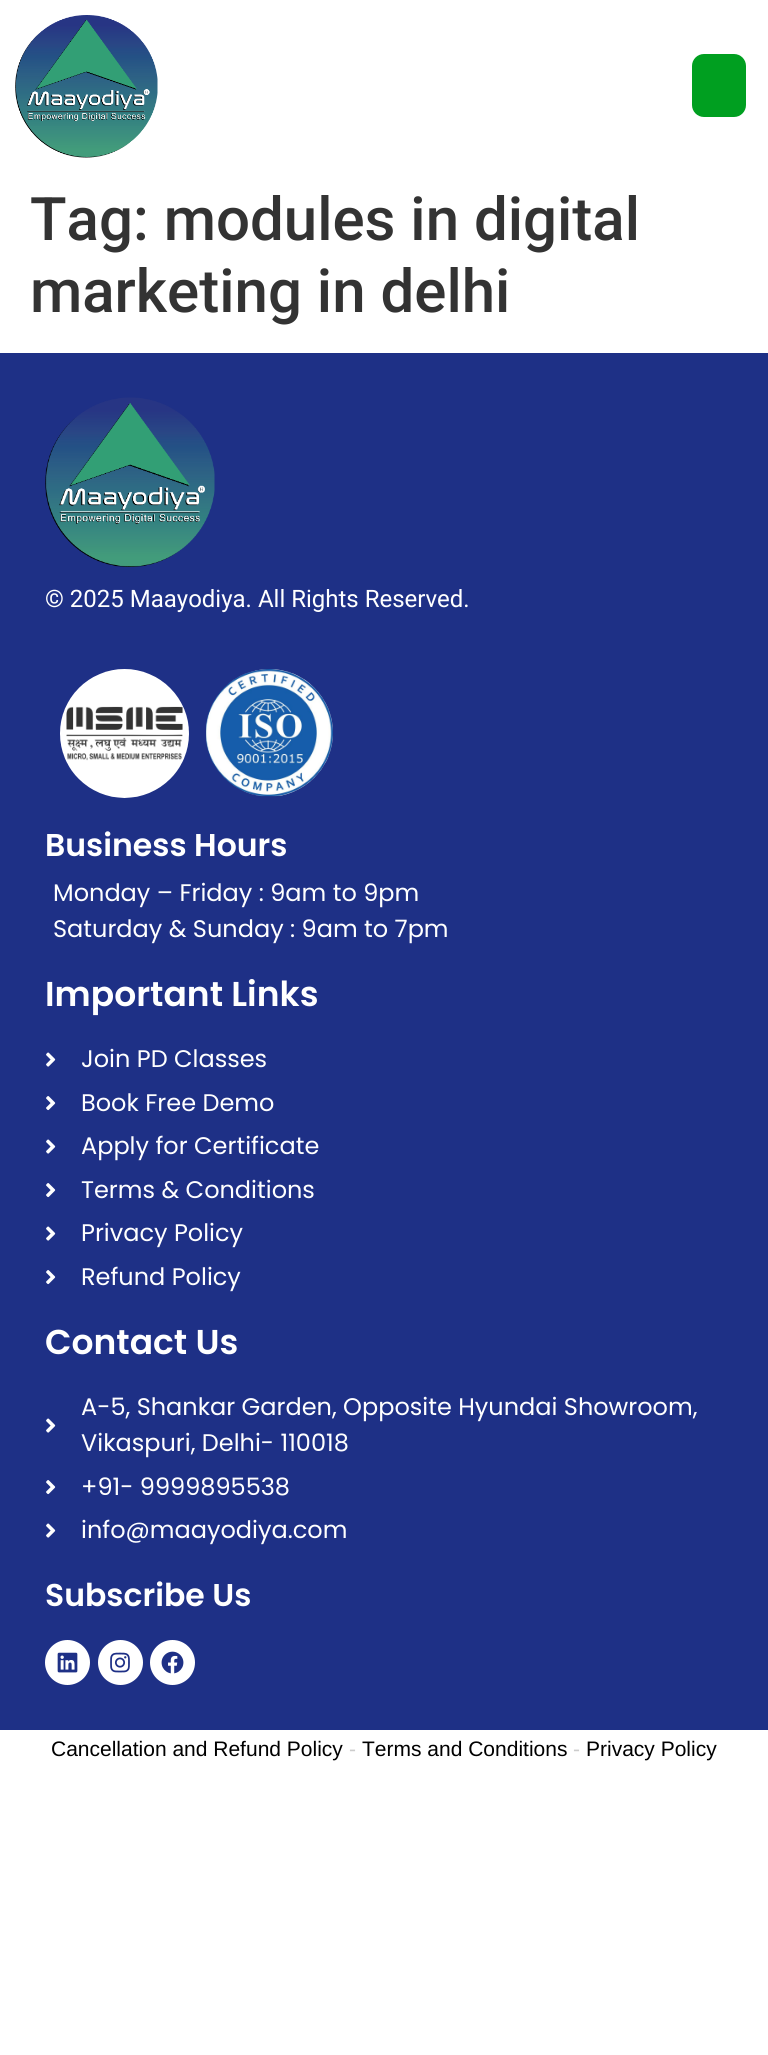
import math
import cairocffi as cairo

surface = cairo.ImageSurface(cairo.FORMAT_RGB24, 768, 2055)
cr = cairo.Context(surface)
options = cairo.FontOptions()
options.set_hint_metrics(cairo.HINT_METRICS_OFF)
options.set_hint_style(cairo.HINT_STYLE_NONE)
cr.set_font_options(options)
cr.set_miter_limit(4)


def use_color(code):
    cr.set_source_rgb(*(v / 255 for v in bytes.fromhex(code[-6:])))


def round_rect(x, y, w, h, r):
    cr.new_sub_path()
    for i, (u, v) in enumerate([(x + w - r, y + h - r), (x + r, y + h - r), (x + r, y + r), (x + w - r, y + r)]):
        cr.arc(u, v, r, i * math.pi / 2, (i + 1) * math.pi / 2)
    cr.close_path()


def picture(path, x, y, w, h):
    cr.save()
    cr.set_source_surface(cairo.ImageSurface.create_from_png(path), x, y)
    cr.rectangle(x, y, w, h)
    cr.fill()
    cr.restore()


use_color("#ffffff")
cr.paint()
picture("img1.png", 15, 15, 143, 143)
use_color("#009f20")
round_rect(692, 54, 54, 63, 12)
cr.fill()
cr.select_font_face("Roboto Medium")
cr.set_font_size(60)
use_color("#333333")
cr.move_to(30, 240)
cr.show_text("Tag: modules in digital")
cr.move_to(30, 312)
cr.show_text("marketing in delhi")
use_color("#1e3086")
cr.rectangle(0, 353, 768, 1377)
cr.fill()
picture("img2.png", 45, 397, 170, 170)
cr.select_font_face("Roboto")
cr.set_font_size(24)
use_color("#ffffff")
cr.move_to(45, 607)
cr.show_text("© 2025 Maayodiya. All Rights Reserved.")
picture("img3.png", 60, 669, 129, 129)
picture("img4.png", 206, 669, 127, 128)
cr.select_font_face("Poppins SemiBold")
cr.set_font_size(31.5)
cr.move_to(45, 856)
cr.show_text("Business Hours")
cr.select_font_face("Poppins")
cr.set_font_size(24)
cr.move_to(53, 901)
cr.show_text("Monday – Friday : 9am to 9pm")
cr.move_to(53, 937)
cr.show_text("Saturday & Sunday : 9am to 7pm")
cr.select_font_face("Poppins SemiBold")
cr.set_font_size(34.5)
cr.move_to(45, 1006)
cr.show_text("Important Links")
picture("img5.png", 46, 1052, 10, 15)
cr.select_font_face("Poppins")
cr.set_font_size(24)
cr.move_to(81, 1067)
cr.show_text("Join PD Classes")
picture("img6.png", 46, 1096, 10, 15)
cr.move_to(81, 1111)
cr.show_text("Book Free Demo")
picture("img5.png", 46, 1139, 10, 15)
cr.move_to(81, 1154)
cr.show_text("Apply for Certificate")
picture("img6.png", 46, 1183, 10, 15)
cr.move_to(81, 1198)
cr.show_text("Terms & Conditions")
picture("img5.png", 46, 1226, 10, 15)
cr.move_to(81, 1241)
cr.show_text("Privacy Policy")
picture("img6.png", 46, 1270, 10, 15)
cr.move_to(81, 1285)
cr.show_text("Refund Policy")
cr.select_font_face("Poppins SemiBold")
cr.set_font_size(34.5)
cr.move_to(45, 1354)
cr.show_text("Contact Us")
picture("img5.png", 46, 1418, 10, 15)
cr.select_font_face("Poppins")
cr.set_font_size(24)
cr.move_to(81, 1415)
cr.show_text("A-5, Shankar Garden, Opposite Hyundai Showroom,")
cr.move_to(81, 1451)
cr.show_text("Vikaspuri, Delhi- 110018")
picture("img6.png", 46, 1480, 10, 15)
cr.move_to(81, 1495)
cr.show_text("+91- 9999895538")
picture("img5.png", 46, 1523, 10, 15)
cr.move_to(81, 1538)
cr.show_text("info@maayodiya.com")
cr.select_font_face("Poppins SemiBold")
cr.set_font_size(31.5)
cr.move_to(45, 1606)
cr.show_text("Subscribe Us")
cr.new_path()
cr.arc(67.5, 1662.5, 22.5, 0, 2 * math.pi)
cr.fill()
picture("img7.png", 57, 1652, 21, 21)
cr.arc(120.5, 1662.5, 22.5, 0, 2 * math.pi)
cr.fill()
picture("img8.png", 110, 1652, 20, 21)
cr.arc(172.5, 1662.5, 22.5, 0, 2 * math.pi)
cr.fill()
picture("img9.png", 161, 1651, 23, 23)
cr.select_font_face("Liberation Sans")
cr.set_font_size(21)
use_color("#000000")
cr.move_to(51, 1756)
cr.show_text("Cancellation and Refund Policy")
use_color("#cccccc")
cr.move_to(349, 1756)
cr.show_text("-")
use_color("#000000")
cr.move_to(362, 1756)
cr.show_text("Terms and Conditions")
use_color("#cccccc")
cr.move_to(573, 1756)
cr.show_text("-")
use_color("#000000")
cr.move_to(586, 1756)
cr.show_text("Privacy Policy")
surface.write_to_png("result.png")
